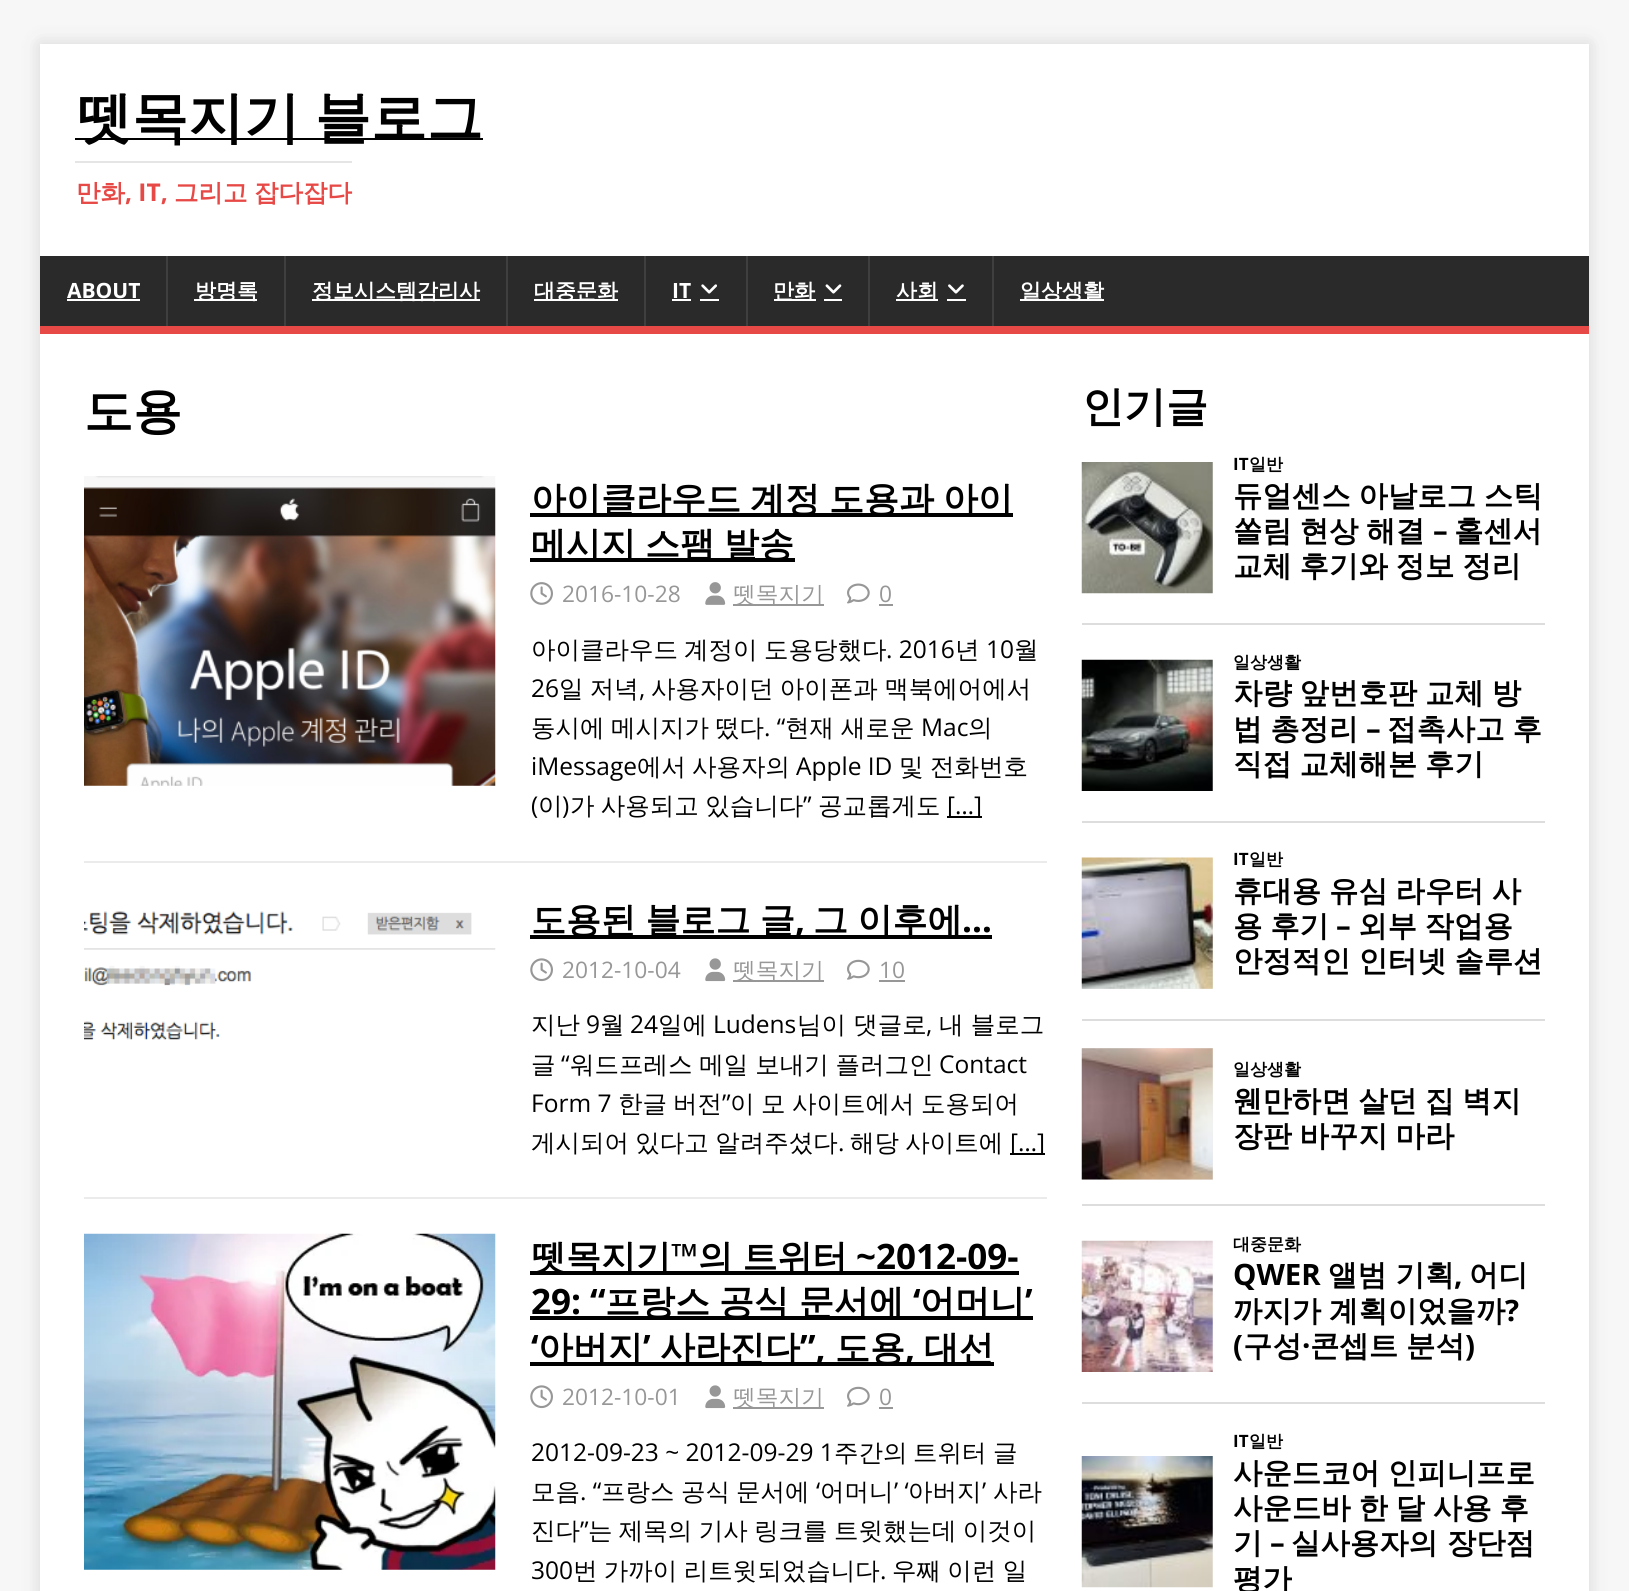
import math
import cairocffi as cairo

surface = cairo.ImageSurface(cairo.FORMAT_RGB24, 1629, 1591)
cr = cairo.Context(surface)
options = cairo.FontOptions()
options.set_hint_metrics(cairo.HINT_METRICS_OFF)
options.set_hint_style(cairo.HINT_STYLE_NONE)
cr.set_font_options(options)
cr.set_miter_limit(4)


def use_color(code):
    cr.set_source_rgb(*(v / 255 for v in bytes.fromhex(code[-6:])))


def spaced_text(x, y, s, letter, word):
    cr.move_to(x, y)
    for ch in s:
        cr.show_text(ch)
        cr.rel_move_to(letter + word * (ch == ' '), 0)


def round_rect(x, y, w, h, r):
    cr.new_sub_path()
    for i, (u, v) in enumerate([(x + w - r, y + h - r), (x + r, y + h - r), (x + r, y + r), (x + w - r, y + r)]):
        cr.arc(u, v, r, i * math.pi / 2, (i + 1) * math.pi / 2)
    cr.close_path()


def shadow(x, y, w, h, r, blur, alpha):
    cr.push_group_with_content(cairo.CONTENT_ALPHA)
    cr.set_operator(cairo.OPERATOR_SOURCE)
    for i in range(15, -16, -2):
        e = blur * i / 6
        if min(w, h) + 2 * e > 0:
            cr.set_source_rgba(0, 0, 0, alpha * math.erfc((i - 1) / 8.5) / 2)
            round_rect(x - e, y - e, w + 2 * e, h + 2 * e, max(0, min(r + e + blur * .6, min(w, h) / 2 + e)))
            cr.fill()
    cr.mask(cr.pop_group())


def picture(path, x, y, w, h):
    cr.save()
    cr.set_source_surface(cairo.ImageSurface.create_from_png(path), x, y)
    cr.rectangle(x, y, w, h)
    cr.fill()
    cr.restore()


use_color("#f7f7f7")
cr.paint()
use_color("#323232")
shadow(40, 44, 1549, 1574, 0, 9, 0.17)
use_color("#ffffff")
cr.rectangle(40, 44, 1549, 212)
cr.fill()
use_color("#000000")
cr.rectangle(75, 138, 408, 2)
cr.fill()
cr.select_font_face("WenQuanYi Zen Hei", cairo.FONT_SLANT_NORMAL, cairo.FONT_WEIGHT_BOLD)
cr.set_font_size(56)
spaced_text(76, 137, "뗏목지기 블로그", 0, -2)
use_color("#e5e5e5")
cr.rectangle(75, 161, 277, 2)
cr.fill()
cr.set_font_size(24.5)
use_color("#e64946")
cr.move_to(76, 201)
cr.show_text("만화")
cr.select_font_face("Open Sans", cairo.FONT_SLANT_NORMAL, cairo.FONT_WEIGHT_BOLD)
cr.move_to(125, 201)
cr.show_text(", IT,")
cr.select_font_face("WenQuanYi Zen Hei", cairo.FONT_SLANT_NORMAL, cairo.FONT_WEIGHT_BOLD)
cr.move_to(174, 201)
cr.show_text("그리고")
cr.move_to(254, 201)
cr.show_text("잡다잡다")
use_color("#2a2a2a")
cr.rectangle(40, 256, 1549, 70)
cr.fill()
use_color("#e64946")
cr.rectangle(40, 326, 1549, 8)
cr.fill()
cr.select_font_face("Open Sans", cairo.FONT_SLANT_NORMAL, cairo.FONT_WEIGHT_BOLD)
cr.set_font_size(21)
use_color("#ffffff")
cr.move_to(67, 298)
cr.show_text("ABOUT")
cr.rectangle(67, 299, 73, 2)
cr.fill()
use_color("#3f3f3f")
cr.rectangle(166, 256, 2, 70)
cr.fill()
use_color("#ffffff")
cr.rectangle(194, 299, 63, 2)
cr.fill()
cr.select_font_face("WenQuanYi Zen Hei", cairo.FONT_SLANT_NORMAL, cairo.FONT_WEIGHT_BOLD)
cr.move_to(195, 298)
cr.show_text("방명록")
use_color("#3f3f3f")
cr.rectangle(284, 256, 2, 70)
cr.fill()
use_color("#ffffff")
cr.rectangle(312, 299, 168, 2)
cr.fill()
cr.move_to(312, 298)
cr.show_text("정보시스템감리사")
use_color("#3f3f3f")
cr.rectangle(506, 256, 2, 70)
cr.fill()
use_color("#ffffff")
cr.rectangle(534, 299, 84, 2)
cr.fill()
cr.move_to(534, 298)
cr.show_text("대중문화")
use_color("#3f3f3f")
cr.rectangle(644, 256, 2, 70)
cr.fill()
cr.select_font_face("Open Sans", cairo.FONT_SLANT_NORMAL, cairo.FONT_WEIGHT_BOLD)
use_color("#ffffff")
cr.move_to(672, 298)
cr.show_text("IT")
cr.rectangle(672, 299, 19, 2)
cr.fill()
picture("img1.png", 701, 284, 16, 10)
cr.rectangle(700, 299, 19, 2)
cr.fill()
use_color("#3f3f3f")
cr.rectangle(746, 256, 2, 70)
cr.fill()
use_color("#ffffff")
cr.rectangle(774, 299, 42, 2)
cr.fill()
cr.select_font_face("WenQuanYi Zen Hei", cairo.FONT_SLANT_NORMAL, cairo.FONT_WEIGHT_BOLD)
cr.move_to(773, 298)
cr.show_text("만화")
picture("img2.png", 825, 284, 17, 10)
cr.rectangle(824, 299, 18, 2)
cr.fill()
use_color("#3f3f3f")
cr.rectangle(868, 256, 2, 70)
cr.fill()
use_color("#ffffff")
cr.rectangle(896, 299, 42, 2)
cr.fill()
cr.move_to(896, 298)
cr.show_text("사회")
picture("img3.png", 948, 284, 16, 10)
cr.rectangle(947, 299, 19, 2)
cr.fill()
use_color("#3f3f3f")
cr.rectangle(992, 256, 2, 70)
cr.fill()
use_color("#ffffff")
cr.rectangle(1020, 299, 84, 2)
cr.fill()
cr.move_to(1020, 298)
cr.show_text("일상생활")
cr.rectangle(40, 334, 1549, 1257)
cr.fill()
cr.set_font_size(49)
use_color("#000000")
cr.move_to(84, 428)
cr.show_text("도용")
use_color("#ebebeb")
cr.rectangle(84, 861, 963, 2)
cr.fill()
picture("img4.png", 84, 476, 412, 310)
use_color("#000000")
cr.rectangle(530, 513, 483, 4)
cr.fill()
cr.set_font_size(35)
spaced_text(531, 511, "아이클라우드 계정 도용과 아이", 0, -1.5)
cr.rectangle(530, 558, 265, 4)
cr.fill()
spaced_text(531, 556, "메시지 스팸 발송", 0, -1.5)
picture("img5.png", 530, 582, 23, 23)
cr.select_font_face("Open Sans")
cr.set_font_size(22.75)
use_color("#979797")
cr.move_to(562, 602)
cr.show_text("2016-10-28")
picture("img6.png", 705, 582, 21, 23)
cr.rectangle(733, 604, 91, 2)
cr.fill()
cr.select_font_face("WenQuanYi Zen Hei Medium")
cr.move_to(733, 602)
cr.show_text("뗏목지기")
picture("img7.png", 847, 583, 23, 21)
cr.select_font_face("Open Sans")
cr.move_to(879, 602)
cr.show_text("0")
cr.rectangle(879, 604, 14, 2)
cr.fill()
cr.select_font_face("WenQuanYi Zen Hei Medium")
cr.set_font_size(24.5)
use_color("#000000")
cr.move_to(531, 658)
cr.show_text("아이클라우드")
cr.move_to(684, 658)
cr.show_text("계정이")
cr.move_to(764, 658)
cr.show_text("도용당했다")
cr.select_font_face("Open Sans")
cr.move_to(886, 658)
cr.show_text(". 2016")
cr.select_font_face("WenQuanYi Zen Hei Medium")
cr.move_to(955, 658)
cr.show_text("년")
cr.select_font_face("Open Sans")
cr.move_to(986, 658)
cr.show_text("10")
cr.select_font_face("WenQuanYi Zen Hei Medium")
cr.move_to(1014, 658)
cr.show_text("월")
cr.select_font_face("Open Sans")
cr.move_to(531, 697)
cr.show_text("26")
cr.select_font_face("WenQuanYi Zen Hei Medium")
spaced_text(559, 697, "일 저녁", 0, -1)
cr.select_font_face("Open Sans")
cr.move_to(639, 697)
cr.show_text(",")
cr.select_font_face("WenQuanYi Zen Hei Medium")
spaced_text(651, 697, "사용자이던 아이폰과 맥북에어에서", 0, -1)
cr.move_to(531, 736)
cr.show_text("동시에")
cr.move_to(611, 736)
cr.show_text("메시지가")
cr.move_to(715, 736)
cr.show_text("떴다")
cr.select_font_face("Open Sans")
cr.move_to(764, 736)
cr.show_text(". “")
cr.select_font_face("WenQuanYi Zen Hei Medium")
cr.move_to(785, 736)
cr.show_text("현재")
cr.move_to(841, 736)
cr.show_text("새로운")
cr.select_font_face("Open Sans")
cr.move_to(921, 736)
cr.show_text("Mac")
cr.select_font_face("WenQuanYi Zen Hei Medium")
cr.move_to(968, 736)
cr.show_text("의")
cr.select_font_face("Open Sans")
cr.move_to(531, 775)
cr.show_text("iMessage")
cr.select_font_face("WenQuanYi Zen Hei Medium")
cr.move_to(637, 775)
cr.show_text("에서")
cr.move_to(692, 775)
cr.show_text("사용자의")
cr.select_font_face("Open Sans")
cr.move_to(796, 775)
cr.show_text("Apple ID")
cr.select_font_face("WenQuanYi Zen Hei Medium")
cr.move_to(899, 775)
cr.show_text("및")
cr.move_to(930, 775)
cr.show_text("전화번호")
cr.select_font_face("Open Sans")
cr.move_to(531, 814)
cr.show_text("(")
cr.select_font_face("WenQuanYi Zen Hei Medium")
cr.move_to(538, 814)
cr.show_text("이")
cr.select_font_face("Open Sans")
cr.move_to(562, 814)
cr.show_text(")")
cr.select_font_face("WenQuanYi Zen Hei Medium")
spaced_text(570, 814, "가 사용되고 있습니다", 0, -1)
cr.select_font_face("Open Sans")
cr.move_to(803, 814)
cr.show_text("”")
cr.select_font_face("WenQuanYi Zen Hei Medium")
cr.move_to(818, 814)
cr.show_text("공교롭게도")
cr.rectangle(947, 816, 35, 2)
cr.fill()
cr.select_font_face("Open Sans")
cr.move_to(947, 814)
cr.show_text("[…]")
use_color("#ebebeb")
cr.rectangle(84, 1197, 963, 2)
cr.fill()
picture("img8.png", 84, 911, 412, 129)
use_color("#000000")
cr.rectangle(530, 935, 462, 4)
cr.fill()
cr.select_font_face("WenQuanYi Zen Hei", cairo.FONT_SLANT_NORMAL, cairo.FONT_WEIGHT_BOLD)
cr.set_font_size(35)
spaced_text(531, 932, "도용된 블로그 글", 0, -1)
cr.select_font_face("Open Sans", cairo.FONT_SLANT_NORMAL, cairo.FONT_WEIGHT_BOLD)
cr.move_to(795, 932)
cr.show_text(",")
cr.select_font_face("WenQuanYi Zen Hei", cairo.FONT_SLANT_NORMAL, cairo.FONT_WEIGHT_BOLD)
spaced_text(813, 932, "그 이후에", 0, -1)
cr.select_font_face("Open Sans", cairo.FONT_SLANT_NORMAL, cairo.FONT_WEIGHT_BOLD)
cr.move_to(962, 932)
cr.show_text("…")
picture("img9.png", 530, 958, 23, 24)
cr.select_font_face("Open Sans")
cr.set_font_size(22.75)
use_color("#979797")
cr.move_to(562, 978)
cr.show_text("2012-10-04")
picture("img10.png", 705, 958, 21, 24)
cr.rectangle(733, 980, 91, 2)
cr.fill()
cr.select_font_face("WenQuanYi Zen Hei Medium")
cr.move_to(733, 978)
cr.show_text("뗏목지기")
picture("img11.png", 847, 959, 23, 21)
cr.select_font_face("Open Sans")
cr.move_to(879, 978)
cr.show_text("10")
cr.rectangle(879, 980, 26, 2)
cr.fill()
cr.select_font_face("WenQuanYi Zen Hei Medium")
cr.set_font_size(24.5)
use_color("#000000")
cr.move_to(531, 1033)
cr.show_text("지난")
cr.select_font_face("Open Sans")
cr.move_to(586, 1033)
cr.show_text("9")
cr.select_font_face("WenQuanYi Zen Hei Medium")
cr.move_to(600, 1033)
cr.show_text("월")
cr.select_font_face("Open Sans")
cr.move_to(630, 1033)
cr.show_text("24")
cr.select_font_face("WenQuanYi Zen Hei Medium")
cr.move_to(658, 1033)
cr.show_text("일에")
cr.select_font_face("Open Sans")
cr.move_to(713, 1033)
cr.show_text("Ludens")
cr.select_font_face("WenQuanYi Zen Hei Medium")
cr.move_to(797, 1033)
cr.show_text("님이 댓글로")
cr.select_font_face("Open Sans")
cr.move_to(926, 1033)
cr.show_text(",")
cr.select_font_face("WenQuanYi Zen Hei Medium")
cr.move_to(939, 1033)
cr.show_text("내 블로그")
cr.move_to(531, 1073)
cr.show_text("글")
cr.select_font_face("Open Sans")
cr.move_to(561, 1073)
cr.show_text("“")
cr.select_font_face("WenQuanYi Zen Hei Medium")
spaced_text(570, 1073, "워드프레스 메일 보내기 플러그인", 0, -0.5)
cr.select_font_face("Open Sans")
cr.move_to(939, 1073)
cr.show_text("Contact")
cr.move_to(531, 1112)
cr.show_text("Form 7")
cr.select_font_face("WenQuanYi Zen Hei Medium")
cr.move_to(618, 1112)
cr.show_text("한글")
cr.move_to(673, 1112)
cr.show_text("버전")
cr.select_font_face("Open Sans")
cr.move_to(722, 1112)
cr.show_text("”")
cr.select_font_face("WenQuanYi Zen Hei Medium")
cr.move_to(730, 1112)
cr.show_text("이")
cr.move_to(761, 1112)
cr.show_text("모")
cr.move_to(792, 1112)
cr.show_text("사이트에서")
cr.move_to(921, 1112)
cr.show_text("도용되어")
spaced_text(531, 1151, "게시되어 있다고 알려주셨다", 0, -1)
cr.select_font_face("Open Sans")
cr.move_to(838, 1151)
cr.show_text(".")
cr.select_font_face("WenQuanYi Zen Hei Medium")
spaced_text(850, 1151, "해당 사이트에", 0, -1)
cr.rectangle(1010, 1153, 35, 2)
cr.fill()
cr.select_font_face("Open Sans")
cr.move_to(1010, 1151)
cr.show_text("[…]")
picture("img12.png", 84, 1233, 412, 337)
cr.rectangle(530, 1271, 489, 4)
cr.fill()
cr.select_font_face("WenQuanYi Zen Hei", cairo.FONT_SLANT_NORMAL, cairo.FONT_WEIGHT_BOLD)
cr.set_font_size(35)
cr.move_to(531, 1269)
cr.show_text("뗏목지기")
cr.select_font_face("Open Sans", cairo.FONT_SLANT_NORMAL, cairo.FONT_WEIGHT_BOLD)
cr.move_to(671, 1269)
cr.show_text("™")
cr.select_font_face("WenQuanYi Zen Hei", cairo.FONT_SLANT_NORMAL, cairo.FONT_WEIGHT_BOLD)
spaced_text(698, 1269, "의 트위터", 0, -1)
cr.select_font_face("Open Sans", cairo.FONT_SLANT_NORMAL, cairo.FONT_WEIGHT_BOLD)
cr.move_to(856, 1269)
cr.show_text("~2012-09-")
cr.move_to(531, 1314)
cr.show_text("29: “")
cr.rectangle(530, 1316, 503, 4)
cr.fill()
cr.select_font_face("WenQuanYi Zen Hei", cairo.FONT_SLANT_NORMAL, cairo.FONT_WEIGHT_BOLD)
cr.move_to(605, 1314)
cr.show_text("프랑스")
cr.move_to(719, 1314)
cr.show_text("공식")
cr.move_to(799, 1314)
cr.show_text("문서에")
cr.select_font_face("Open Sans", cairo.FONT_SLANT_NORMAL, cairo.FONT_WEIGHT_BOLD)
cr.move_to(913, 1314)
cr.show_text("‘")
cr.select_font_face("WenQuanYi Zen Hei", cairo.FONT_SLANT_NORMAL, cairo.FONT_WEIGHT_BOLD)
cr.move_to(920, 1314)
cr.show_text("어머니")
cr.select_font_face("Open Sans", cairo.FONT_SLANT_NORMAL, cairo.FONT_WEIGHT_BOLD)
cr.move_to(1025, 1314)
cr.show_text("’")
cr.move_to(531, 1360)
cr.show_text("‘")
cr.rectangle(530, 1362, 464, 4)
cr.fill()
cr.select_font_face("WenQuanYi Zen Hei", cairo.FONT_SLANT_NORMAL, cairo.FONT_WEIGHT_BOLD)
cr.move_to(538, 1360)
cr.show_text("아버지")
cr.select_font_face("Open Sans", cairo.FONT_SLANT_NORMAL, cairo.FONT_WEIGHT_BOLD)
cr.move_to(643, 1360)
cr.show_text("’")
cr.select_font_face("WenQuanYi Zen Hei", cairo.FONT_SLANT_NORMAL, cairo.FONT_WEIGHT_BOLD)
cr.move_to(660, 1360)
cr.show_text("사라진다")
cr.select_font_face("Open Sans", cairo.FONT_SLANT_NORMAL, cairo.FONT_WEIGHT_BOLD)
cr.move_to(800, 1360)
cr.show_text("”,")
cr.select_font_face("WenQuanYi Zen Hei", cairo.FONT_SLANT_NORMAL, cairo.FONT_WEIGHT_BOLD)
cr.move_to(835, 1360)
cr.show_text("도용")
cr.select_font_face("Open Sans", cairo.FONT_SLANT_NORMAL, cairo.FONT_WEIGHT_BOLD)
cr.move_to(905, 1360)
cr.show_text(",")
cr.select_font_face("WenQuanYi Zen Hei", cairo.FONT_SLANT_NORMAL, cairo.FONT_WEIGHT_BOLD)
cr.move_to(924, 1360)
cr.show_text("대선")
picture("img9.png", 530, 1385, 23, 24)
cr.select_font_face("Open Sans")
cr.set_font_size(22.75)
use_color("#979797")
cr.move_to(562, 1405)
cr.show_text("2012-10-01")
picture("img10.png", 705, 1385, 21, 24)
cr.rectangle(733, 1407, 91, 2)
cr.fill()
cr.select_font_face("WenQuanYi Zen Hei Medium")
cr.move_to(733, 1405)
cr.show_text("뗏목지기")
picture("img11.png", 847, 1386, 23, 21)
cr.select_font_face("Open Sans")
cr.move_to(879, 1405)
cr.show_text("0")
cr.rectangle(879, 1407, 14, 2)
cr.fill()
cr.set_font_size(24.5)
use_color("#000000")
cr.move_to(531, 1461)
cr.show_text("2012-09-23 ~ 2012-09-29 1")
cr.select_font_face("WenQuanYi Zen Hei Medium")
cr.move_to(834, 1461)
cr.show_text("주간의")
cr.move_to(913, 1461)
cr.show_text("트위터")
cr.move_to(993, 1461)
cr.show_text("글")
cr.move_to(531, 1500)
cr.show_text("모음")
cr.select_font_face("Open Sans")
cr.move_to(580, 1500)
cr.show_text(". “")
cr.select_font_face("WenQuanYi Zen Hei Medium")
cr.move_to(601, 1500)
cr.show_text("프랑스")
cr.move_to(681, 1500)
cr.show_text("공식")
cr.move_to(736, 1500)
cr.show_text("문서에")
cr.select_font_face("Open Sans")
cr.move_to(816, 1500)
cr.show_text("‘")
cr.select_font_face("WenQuanYi Zen Hei Medium")
cr.move_to(820, 1500)
cr.show_text("어머니")
cr.select_font_face("Open Sans")
cr.move_to(894, 1500)
cr.show_text("’ ‘")
cr.select_font_face("WenQuanYi Zen Hei Medium")
cr.move_to(908, 1500)
cr.show_text("아버지")
cr.select_font_face("Open Sans")
cr.move_to(982, 1500)
cr.show_text("’")
cr.select_font_face("WenQuanYi Zen Hei Medium")
cr.move_to(993, 1500)
cr.show_text("사라")
cr.move_to(531, 1539)
cr.show_text("진다")
cr.select_font_face("Open Sans")
cr.move_to(580, 1539)
cr.show_text("”")
cr.select_font_face("WenQuanYi Zen Hei Medium")
spaced_text(588, 1539, "는 제목의 기사 링크를 트윗했는데 이것이", 0, -1)
cr.select_font_face("Open Sans")
cr.move_to(531, 1579)
cr.show_text("300")
cr.select_font_face("WenQuanYi Zen Hei Medium")
spaced_text(573, 1579, "번 가까이 리트윗되었습니다", 0, -1)
cr.select_font_face("Open Sans")
cr.move_to(880, 1579)
cr.show_text(".")
cr.select_font_face("WenQuanYi Zen Hei Medium")
spaced_text(892, 1579, "우째 이런 일", 0, -1)
cr.select_font_face("WenQuanYi Zen Hei", cairo.FONT_SLANT_NORMAL, cairo.FONT_WEIGHT_BOLD)
cr.set_font_size(42)
cr.move_to(1082, 421)
cr.show_text("인기글")
use_color("#dddddd")
cr.rectangle(1082, 623, 463, 2)
cr.fill()
picture("img13.png", 1081, 462, 132, 132)
cr.select_font_face("Open Sans", cairo.FONT_SLANT_NORMAL, cairo.FONT_WEIGHT_BOLD)
cr.set_font_size(17)
use_color("#000000")
cr.move_to(1233, 470)
cr.show_text("IT")
cr.select_font_face("WenQuanYi Zen Hei", cairo.FONT_SLANT_NORMAL, cairo.FONT_WEIGHT_BOLD)
cr.move_to(1249, 470)
cr.show_text("일반")
cr.set_font_size(29.4)
spaced_text(1233, 506, "듀얼센스 아날로그 스틱", 0, -1)
spaced_text(1233, 541, "쏠림 현상 해결", 0, -1)
cr.select_font_face("Open Sans", cairo.FONT_SLANT_NORMAL, cairo.FONT_WEIGHT_BOLD)
cr.move_to(1433, 541)
cr.show_text("–")
cr.select_font_face("WenQuanYi Zen Hei", cairo.FONT_SLANT_NORMAL, cairo.FONT_WEIGHT_BOLD)
cr.move_to(1454, 541)
cr.show_text("홀센서")
spaced_text(1233, 576, "교체 후기와 정보 정리", 0, -1)
use_color("#dddddd")
cr.rectangle(1082, 821, 463, 2)
cr.fill()
picture("img14.png", 1081, 659, 132, 132)
cr.set_font_size(17)
use_color("#000000")
cr.move_to(1233, 668)
cr.show_text("일상생활")
cr.set_font_size(29.4)
spaced_text(1233, 703, "차량 앞번호판 교체 방", 0, -1)
spaced_text(1233, 739, "법 총정리", 0, -1)
cr.select_font_face("Open Sans", cairo.FONT_SLANT_NORMAL, cairo.FONT_WEIGHT_BOLD)
cr.move_to(1366, 739)
cr.show_text("–")
cr.select_font_face("WenQuanYi Zen Hei", cairo.FONT_SLANT_NORMAL, cairo.FONT_WEIGHT_BOLD)
spaced_text(1387, 739, "접촉사고 후", 0, -1)
spaced_text(1233, 774, "직접 교체해본 후기", 0, -1)
use_color("#dddddd")
cr.rectangle(1082, 1019, 463, 2)
cr.fill()
use_color("#f0f0f0")
cr.rectangle(1082, 858, 131, 131)
cr.fill()
picture("img15.png", 1081, 857, 132, 132)
cr.select_font_face("Open Sans", cairo.FONT_SLANT_NORMAL, cairo.FONT_WEIGHT_BOLD)
cr.set_font_size(17)
use_color("#000000")
cr.move_to(1233, 865)
cr.show_text("IT")
cr.select_font_face("WenQuanYi Zen Hei", cairo.FONT_SLANT_NORMAL, cairo.FONT_WEIGHT_BOLD)
cr.move_to(1249, 865)
cr.show_text("일반")
cr.set_font_size(29.4)
spaced_text(1233, 901, "휴대용 유심 라우터 사", 0, -1)
spaced_text(1233, 936, "용 후기", 0, -1)
cr.select_font_face("Open Sans", cairo.FONT_SLANT_NORMAL, cairo.FONT_WEIGHT_BOLD)
cr.move_to(1336, 936)
cr.show_text("–")
cr.select_font_face("WenQuanYi Zen Hei", cairo.FONT_SLANT_NORMAL, cairo.FONT_WEIGHT_BOLD)
spaced_text(1358, 936, "외부 작업용", 0, -1)
spaced_text(1233, 971, "안정적인 인터넷 솔루션", 0, -1)
use_color("#dddddd")
cr.rectangle(1082, 1204, 463, 2)
cr.fill()
use_color("#f0f0f0")
cr.rectangle(1082, 1048, 131, 132)
cr.fill()
picture("img16.png", 1081, 1048, 132, 132)
cr.set_font_size(17)
use_color("#000000")
cr.move_to(1233, 1075)
cr.show_text("일상생활")
cr.set_font_size(29.4)
spaced_text(1233, 1111, "웬만하면 살던 집 벽지", 0, -1)
spaced_text(1233, 1146, "장판 바꾸지 마라", 0, -1)
use_color("#dddddd")
cr.rectangle(1082, 1402, 463, 2)
cr.fill()
picture("img17.png", 1081, 1240, 132, 132)
cr.set_font_size(17)
use_color("#000000")
cr.move_to(1233, 1250)
cr.show_text("대중문화")
cr.select_font_face("Open Sans", cairo.FONT_SLANT_NORMAL, cairo.FONT_WEIGHT_BOLD)
cr.set_font_size(29.4)
cr.move_to(1233, 1285)
cr.show_text("QWER")
cr.select_font_face("WenQuanYi Zen Hei", cairo.FONT_SLANT_NORMAL, cairo.FONT_WEIGHT_BOLD)
cr.move_to(1328, 1285)
cr.show_text("앨범 기획")
cr.select_font_face("Open Sans", cairo.FONT_SLANT_NORMAL, cairo.FONT_WEIGHT_BOLD)
cr.move_to(1454, 1285)
cr.show_text(",")
cr.select_font_face("WenQuanYi Zen Hei", cairo.FONT_SLANT_NORMAL, cairo.FONT_WEIGHT_BOLD)
cr.move_to(1469, 1285)
cr.show_text("어디")
spaced_text(1233, 1321, "까지가 계획이었을까", 0, -1)
cr.select_font_face("Open Sans", cairo.FONT_SLANT_NORMAL, cairo.FONT_WEIGHT_BOLD)
cr.move_to(1505, 1321)
cr.show_text("?")
cr.move_to(1233, 1356)
cr.show_text("(")
cr.select_font_face("WenQuanYi Zen Hei", cairo.FONT_SLANT_NORMAL, cairo.FONT_WEIGHT_BOLD)
cr.move_to(1243, 1356)
cr.show_text("구성")
cr.select_font_face("Open Sans", cairo.FONT_SLANT_NORMAL, cairo.FONT_WEIGHT_BOLD)
cr.move_to(1302, 1356)
cr.show_text("·")
cr.select_font_face("WenQuanYi Zen Hei", cairo.FONT_SLANT_NORMAL, cairo.FONT_WEIGHT_BOLD)
spaced_text(1310, 1356, "콘셉트 분석", 0, -1)
cr.select_font_face("Open Sans", cairo.FONT_SLANT_NORMAL, cairo.FONT_WEIGHT_BOLD)
cr.move_to(1465, 1356)
cr.show_text(")")
picture("img18.png", 1081, 1456, 132, 132)
cr.set_font_size(17)
cr.move_to(1233, 1447)
cr.show_text("IT")
cr.select_font_face("WenQuanYi Zen Hei", cairo.FONT_SLANT_NORMAL, cairo.FONT_WEIGHT_BOLD)
cr.move_to(1249, 1447)
cr.show_text("일반")
cr.set_font_size(29.4)
spaced_text(1233, 1483, "사운드코어 인피니프로", 0, -1)
spaced_text(1233, 1518, "사운드바 한 달 사용 후", 0, -1)
cr.move_to(1233, 1553)
cr.show_text("기")
cr.select_font_face("Open Sans", cairo.FONT_SLANT_NORMAL, cairo.FONT_WEIGHT_BOLD)
cr.move_to(1270, 1553)
cr.show_text("–")
cr.select_font_face("WenQuanYi Zen Hei", cairo.FONT_SLANT_NORMAL, cairo.FONT_WEIGHT_BOLD)
cr.move_to(1291, 1553)
cr.show_text("실사용자의 장단점")
cr.move_to(1233, 1589)
cr.show_text("평가")
surface.write_to_png("result.png")
